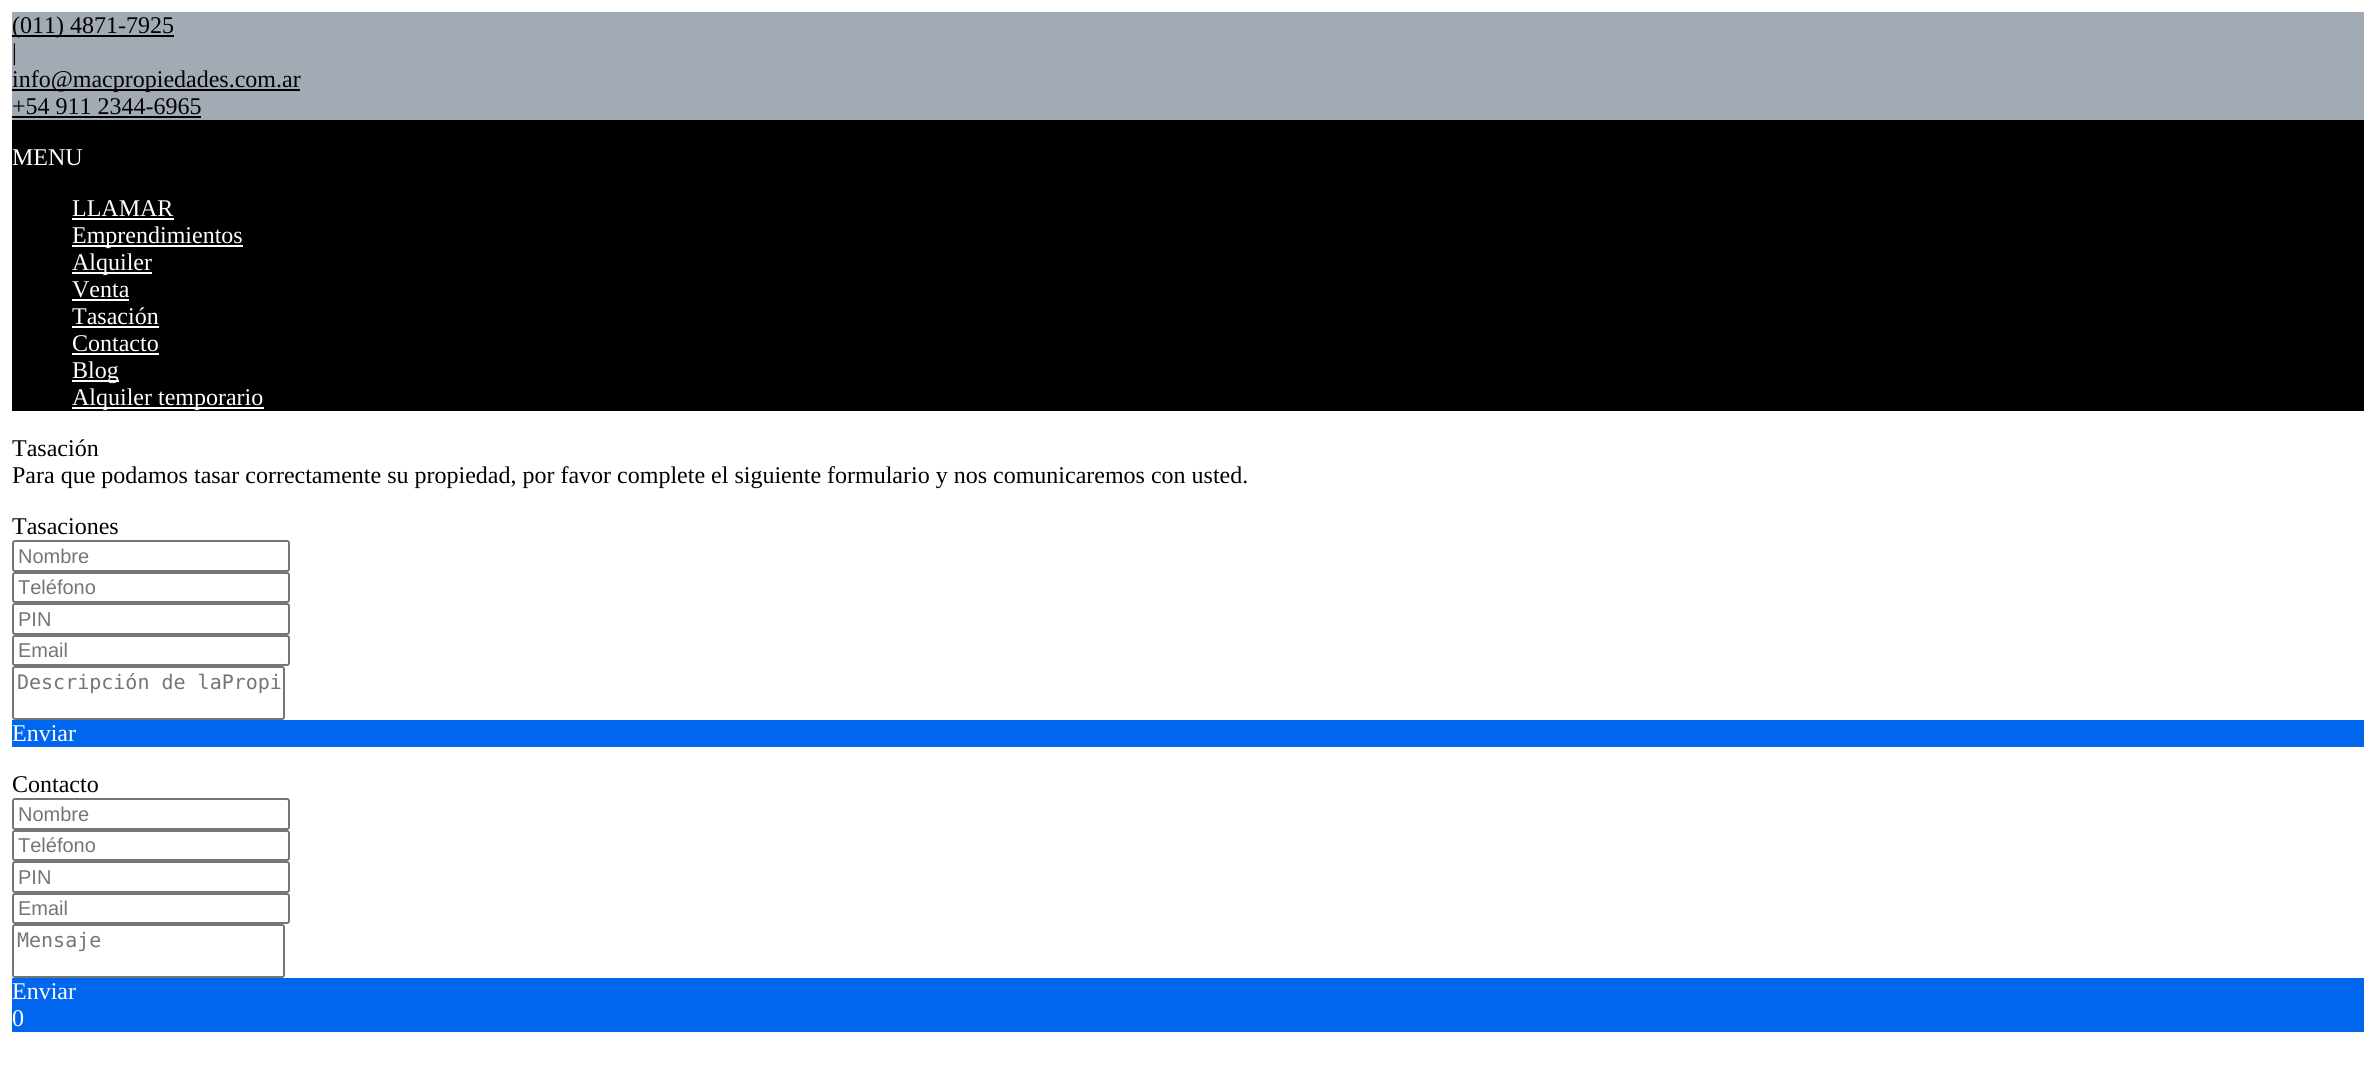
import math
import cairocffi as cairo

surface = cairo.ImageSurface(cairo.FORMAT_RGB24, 2376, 1081)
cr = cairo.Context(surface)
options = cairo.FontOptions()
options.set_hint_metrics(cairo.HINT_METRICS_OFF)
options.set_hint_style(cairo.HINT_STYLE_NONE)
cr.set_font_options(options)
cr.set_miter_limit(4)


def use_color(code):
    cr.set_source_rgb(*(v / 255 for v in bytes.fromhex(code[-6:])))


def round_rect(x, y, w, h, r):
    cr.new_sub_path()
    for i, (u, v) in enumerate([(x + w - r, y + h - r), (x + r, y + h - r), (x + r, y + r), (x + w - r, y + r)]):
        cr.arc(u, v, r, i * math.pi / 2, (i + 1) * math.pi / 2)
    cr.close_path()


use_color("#ffffff")
cr.paint()
use_color("#a2aab3")
cr.rectangle(12, 12, 2352, 108)
cr.fill()
use_color("#000000")
cr.rectangle(12, 35, 162, 2)
cr.fill()
cr.select_font_face("Liberation Serif")
cr.set_font_size(24)
cr.move_to(12, 33)
cr.show_text("(011) 4871-7925")
cr.move_to(12, 60)
cr.show_text("|")
cr.rectangle(12, 89, 288, 2)
cr.fill()
cr.move_to(12, 87)
cr.show_text("info@macpropiedades.com.ar")
cr.move_to(12, 114)
cr.show_text("+54 911 2344-6965")
cr.rectangle(12, 116, 189, 2)
cr.fill()
cr.rectangle(12, 120, 2352, 291)
cr.fill()
use_color("#ffffff")
cr.move_to(12, 165)
cr.show_text("MENU")
cr.move_to(72, 216)
cr.show_text("LLAMAR")
cr.rectangle(72, 218, 102, 2)
cr.fill()
cr.rectangle(72, 245, 171, 2)
cr.fill()
cr.move_to(72, 243)
cr.show_text("Emprendimientos")
cr.rectangle(72, 272, 80, 2)
cr.fill()
cr.move_to(72, 270)
cr.show_text("Alquiler")
cr.move_to(72, 297)
cr.show_text("Venta")
cr.rectangle(72, 299, 57, 2)
cr.fill()
cr.move_to(72, 324)
cr.show_text("Tasación")
cr.rectangle(72, 326, 87, 2)
cr.fill()
cr.move_to(72, 351)
cr.show_text("Contacto")
cr.rectangle(72, 353, 87, 2)
cr.fill()
cr.rectangle(72, 380, 47, 2)
cr.fill()
cr.move_to(72, 378)
cr.show_text("Blog")
cr.rectangle(72, 407, 192, 2)
cr.fill()
cr.move_to(72, 405)
cr.show_text("Alquiler temporario")
use_color("#000000")
cr.move_to(12, 456)
cr.show_text("Tasación")
cr.move_to(12, 483)
cr.show_text("Para que podamos tasar correctamente su propiedad, por favor complete el siguiente formulario y nos comunicaremos con usted.")
cr.move_to(12, 534)
cr.show_text("Tasaciones")
round_rect(13, 541, 276, 30, 2)
use_color("#767676")
cr.stroke()
cr.select_font_face("Liberation Sans")
cr.set_font_size(20)
use_color("#757575")
cr.move_to(18, 563)
cr.show_text("Nombre")
round_rect(13, 573, 276, 29, 2)
use_color("#767676")
cr.stroke()
use_color("#757575")
cr.move_to(18, 594)
cr.show_text("Teléfono")
round_rect(13, 604, 276, 30, 2)
use_color("#767676")
cr.stroke()
use_color("#757575")
cr.move_to(18, 626)
cr.show_text("PIN")
round_rect(13, 636, 276, 29, 2)
use_color("#767676")
cr.stroke()
use_color("#757575")
cr.move_to(18, 657)
cr.show_text("Email")
round_rect(13, 667, 271, 52, 2)
use_color("#767676")
cr.stroke()
cr.select_font_face("DejaVu Sans Mono")
use_color("#757575")
cr.move_to(17, 689)
cr.show_text("Descripción de laPropi")
use_color("#0066ee")
cr.rectangle(12, 720, 2352, 27)
cr.fill()
cr.select_font_face("Liberation Serif")
cr.set_font_size(24)
use_color("#ffffff")
cr.move_to(12, 741)
cr.show_text("Enviar")
use_color("#000000")
cr.move_to(12, 792)
cr.show_text("Contacto")
round_rect(13, 799, 276, 30, 2)
use_color("#767676")
cr.stroke()
cr.select_font_face("Liberation Sans")
cr.set_font_size(20)
use_color("#757575")
cr.move_to(18, 821)
cr.show_text("Nombre")
round_rect(13, 831, 276, 29, 2)
use_color("#767676")
cr.stroke()
use_color("#757575")
cr.move_to(18, 852)
cr.show_text("Teléfono")
round_rect(13, 862, 276, 30, 2)
use_color("#767676")
cr.stroke()
use_color("#757575")
cr.move_to(18, 884)
cr.show_text("PIN")
round_rect(13, 894, 276, 29, 2)
use_color("#767676")
cr.stroke()
use_color("#757575")
cr.move_to(18, 915)
cr.show_text("Email")
round_rect(13, 925, 271, 52, 2)
use_color("#767676")
cr.stroke()
cr.select_font_face("DejaVu Sans Mono")
use_color("#757575")
cr.move_to(17, 947)
cr.show_text("Mensaje")
use_color("#0066ee")
cr.rectangle(12, 978, 2352, 54)
cr.fill()
cr.select_font_face("Liberation Serif")
cr.set_font_size(24)
use_color("#ffffff")
cr.move_to(12, 999)
cr.show_text("Enviar")
cr.move_to(12, 1026)
cr.show_text("0")
surface.write_to_png("result.png")
